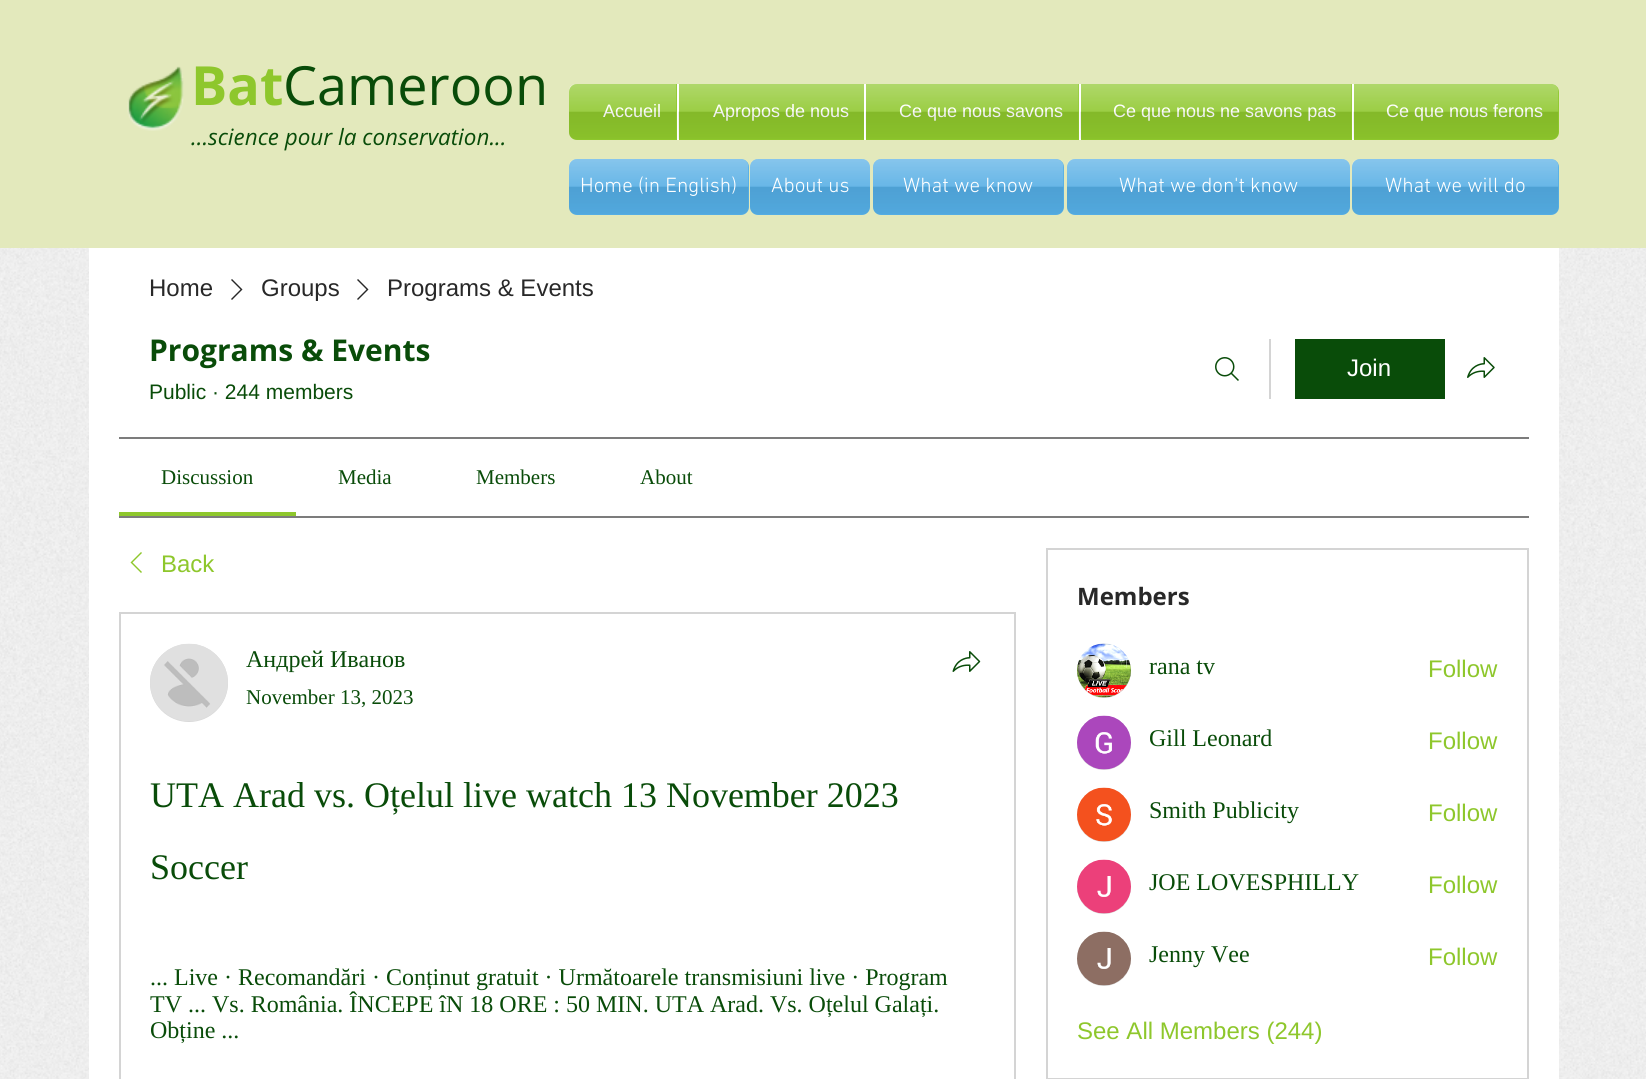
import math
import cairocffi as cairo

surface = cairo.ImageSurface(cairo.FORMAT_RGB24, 1646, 1079)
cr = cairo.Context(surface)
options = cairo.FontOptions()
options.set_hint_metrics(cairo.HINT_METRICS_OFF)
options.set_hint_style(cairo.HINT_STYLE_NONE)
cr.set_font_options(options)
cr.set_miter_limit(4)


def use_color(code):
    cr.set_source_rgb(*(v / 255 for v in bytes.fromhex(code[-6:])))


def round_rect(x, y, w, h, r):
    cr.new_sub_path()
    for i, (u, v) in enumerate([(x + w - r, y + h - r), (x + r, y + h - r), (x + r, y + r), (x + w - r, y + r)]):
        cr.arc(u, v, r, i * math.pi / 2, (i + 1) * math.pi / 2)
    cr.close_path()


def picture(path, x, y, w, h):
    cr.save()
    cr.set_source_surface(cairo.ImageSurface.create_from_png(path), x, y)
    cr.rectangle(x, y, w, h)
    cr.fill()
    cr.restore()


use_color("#ffffff")
cr.paint()
use_color("#e3e9bc")
cr.rectangle(0, 0, 1646, 248)
cr.fill()
picture("img1.png", 127, 66, 57, 65)
cr.select_font_face("Open Sans", cairo.FONT_SLANT_NORMAL, cairo.FONT_WEIGHT_BOLD)
cr.set_font_size(54)
use_color("#8ec72c")
cr.move_to(191, 105)
cr.show_text("Bat")
cr.select_font_face("Open Sans")
use_color("#094c09")
cr.move_to(283, 105)
cr.show_text("Cameroon")
cr.select_font_face("Open Sans", cairo.FONT_SLANT_ITALIC)
cr.set_font_size(22.5)
cr.move_to(191, 145)
cr.show_text("...science pour la conservation...")
picture("img2.png", 569, 84, 990, 55)
use_color("#8ec72c")
cr.new_path()
cr.move_to(577, 84)
cr.line_to(677, 84)
cr.line_to(677, 140)
cr.line_to(577, 140)
cr.curve_to(572.5, 140, 569, 136.5, 569, 132)
cr.line_to(569, 92)
cr.curve_to(569, 87.5, 572.5, 84, 577, 84)
cr.close_path()
cr.fill()
cr.select_font_face("Liberation Sans")
cr.set_font_size(18)
use_color("#ffffff")
cr.move_to(603, 117)
cr.show_text("Accueil")
picture("img3.png", 569, 84, 108, 55)
use_color("#8ec72c")
cr.rectangle(679, 84, 185, 56)
cr.fill()
use_color("#ffffff")
cr.rectangle(677, 84, 2, 56)
cr.fill()
cr.move_to(713, 117)
cr.show_text("Apropos de nous")
picture("img4.png", 678, 84, 186, 55)
use_color("#8ec72c")
cr.rectangle(866, 84, 213, 56)
cr.fill()
use_color("#ffffff")
cr.rectangle(864, 84, 2, 56)
cr.fill()
cr.move_to(899, 117)
cr.show_text("Ce que nous savons")
picture("img5.png", 865, 84, 214, 55)
use_color("#8ec72c")
cr.rectangle(1081, 84, 271, 56)
cr.fill()
use_color("#ffffff")
cr.rectangle(1079, 84, 2, 56)
cr.fill()
cr.move_to(1113, 117)
cr.show_text("Ce que nous ne savons pas")
picture("img6.png", 1080, 84, 272, 55)
use_color("#8ec72c")
cr.new_path()
cr.move_to(1352, 84)
cr.line_to(1551, 84)
cr.curve_to(1555.5, 84, 1559, 87.5, 1559, 92)
cr.line_to(1559, 132)
cr.curve_to(1559, 136.5, 1555.5, 140, 1551, 140)
cr.line_to(1352, 140)
cr.close_path()
cr.fill()
use_color("#ffffff")
cr.rectangle(1352, 84, 2, 56)
cr.fill()
cr.move_to(1386, 117)
cr.show_text("Ce que nous ferons")
picture("img7.png", 1353, 84, 206, 55)
use_color("#54ade4")
round_rect(569, 159, 180, 56, 8)
cr.fill()
picture("img8.png", 569, 159, 180, 55)
cr.select_font_face("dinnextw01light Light")
cr.set_font_size(21)
use_color("#ffffff")
cr.move_to(580, 192)
cr.show_text("Home (in English)")
use_color("#54ade4")
round_rect(750, 159, 120, 56, 8)
cr.fill()
picture("img9.png", 750, 159, 120, 55)
use_color("#ffffff")
cr.move_to(771, 192)
cr.show_text("About us")
use_color("#54ade4")
round_rect(873, 159, 191, 56, 8)
cr.fill()
picture("img10.png", 873, 159, 191, 55)
use_color("#ffffff")
cr.move_to(903, 192)
cr.show_text("What we know")
use_color("#54ade4")
round_rect(1067, 159, 283, 56, 8)
cr.fill()
picture("img11.png", 1067, 159, 283, 55)
use_color("#ffffff")
cr.move_to(1119, 192)
cr.show_text("What we don't know")
use_color("#54ade4")
round_rect(1352, 159, 207, 56, 8)
cr.fill()
picture("img12.png", 1352, 159, 207, 55)
use_color("#ffffff")
cr.move_to(1385, 192)
cr.show_text("What we will do")
picture("img22.png", 0, 248, 1646, 831)
cr.rectangle(89, 248, 1470, 831)
cr.fill()
cr.select_font_face("Liberation Sans")
cr.set_font_size(24)
use_color("#282828")
cr.move_to(149, 296)
cr.show_text("Home")
cr.set_fill_rule(cairo.FILL_RULE_EVEN_ODD)
cr.new_path()
cr.move_to(232, 279)
cr.line_to(242.5, 289.5)
cr.line_to(232, 300)
cr.line_to(231, 299)
cr.line_to(240.5, 289.5)
cr.line_to(231, 280)
cr.close_path()
cr.fill()
cr.move_to(261, 296)
cr.show_text("Groups")
cr.new_path()
cr.move_to(358, 279)
cr.line_to(368.5, 289.5)
cr.line_to(358, 300)
cr.line_to(357, 299)
cr.line_to(366.5, 289.5)
cr.line_to(357, 280)
cr.close_path()
cr.fill()
cr.move_to(387, 296)
cr.show_text("Programs & Events")
cr.select_font_face("Open Sans", cairo.FONT_SLANT_NORMAL, cairo.FONT_WEIGHT_BOLD)
cr.set_font_size(30)
use_color("#094c09")
cr.move_to(149, 361)
cr.show_text("Programs & Events")
cr.select_font_face("Liberation Sans")
cr.set_font_size(21)
cr.move_to(149, 399)
cr.show_text("Public · 244 members")
picture("img13.png", 1215, 357, 24, 24)
use_color("#d4d4d4")
cr.rectangle(1269, 339, 2, 60)
cr.fill()
use_color("#094c09")
cr.rectangle(1295, 339, 150, 60)
cr.fill()
cr.set_font_size(24)
use_color("#ffffff")
cr.move_to(1347, 376)
cr.show_text("Join")
picture("img14.png", 1467, 357, 28, 21)
use_color("#7c7c7c")
cr.rectangle(119, 437, 1410, 2)
cr.fill()
cr.rectangle(119, 516, 1410, 2)
cr.fill()
use_color("#8ec72c")
cr.rectangle(119, 512, 177, 4)
cr.fill()
cr.select_font_face("Liberation Serif")
cr.set_font_size(21)
use_color("#094c09")
cr.move_to(161, 484)
cr.show_text("Discussion")
cr.move_to(338, 484)
cr.show_text("Media")
cr.move_to(476, 484)
cr.show_text("Members")
cr.move_to(640, 484)
cr.show_text("About")
use_color("#8ec72c")
cr.new_path()
cr.move_to(141, 552)
cr.line_to(142, 553)
cr.line_to(132.5, 562.5)
cr.line_to(142, 572)
cr.line_to(141, 573)
cr.line_to(130.5, 562.5)
cr.close_path()
cr.fill()
cr.select_font_face("Liberation Sans")
cr.set_font_size(24)
cr.move_to(161, 572)
cr.show_text("Back")
cr.rectangle(120, 613, 895, 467)
use_color("#d4d4d4")
cr.stroke()
use_color("#d8d8d8")
cr.arc(189, 683, 39, 0, 2 * math.pi)
cr.fill()
picture("img15.png", 150, 643, 78, 78)
cr.select_font_face("Liberation Serif")
use_color("#094c09")
cr.move_to(246, 667)
cr.show_text("Андрей Иванов")
cr.set_font_size(21)
cr.move_to(246, 704)
cr.show_text("November 13, 2023")
picture("img16.png", 952, 651, 29, 21)
cr.set_font_size(36)
cr.move_to(150, 807)
cr.show_text("UTA Arad vs. Oțelul live watch 13 November 2023")
cr.move_to(150, 879)
cr.show_text("Soccer")
cr.set_font_size(24)
cr.move_to(150, 985)
cr.show_text("... Live · Recomandări · Conținut gratuit · Următoarele transmisiuni live · Program")
cr.move_to(150, 1012)
cr.show_text("TV ... Vs. România. ÎNCEPE îN 18 ORE : 50 MIN. UTA Arad. Vs. Oțelul Galați.")
cr.move_to(150, 1038)
cr.show_text("Obține ...")
cr.rectangle(1047, 549, 481, 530)
use_color("#d4d4d4")
cr.stroke()
cr.select_font_face("Open Sans", cairo.FONT_SLANT_NORMAL, cairo.FONT_WEIGHT_BOLD)
use_color("#282828")
cr.move_to(1077, 605)
cr.show_text("Members")
use_color("#d8d8d8")
cr.new_path()
cr.arc(1104, 671, 27, 0, 2 * math.pi)
cr.fill()
picture("img17.png", 1077, 643, 54, 55)
cr.select_font_face("Liberation Serif")
use_color("#094c09")
cr.move_to(1149, 674)
cr.show_text("rana tv")
cr.select_font_face("Liberation Sans")
use_color("#8ec72c")
cr.move_to(1428, 677)
cr.show_text("Follow")
use_color("#d8d8d8")
cr.new_path()
cr.arc(1104, 743, 27, 0, 2 * math.pi)
cr.fill()
picture("img18.png", 1077, 715, 54, 55)
cr.select_font_face("Liberation Serif")
use_color("#094c09")
cr.move_to(1149, 746)
cr.show_text("Gill Leonard")
cr.select_font_face("Liberation Sans")
use_color("#8ec72c")
cr.move_to(1428, 749)
cr.show_text("Follow")
use_color("#d8d8d8")
cr.new_path()
cr.arc(1104, 815, 27, 0, 2 * math.pi)
cr.fill()
picture("img19.png", 1077, 787, 54, 55)
cr.select_font_face("Liberation Serif")
use_color("#094c09")
cr.move_to(1149, 818)
cr.show_text("Smith Publicity")
cr.select_font_face("Liberation Sans")
use_color("#8ec72c")
cr.move_to(1428, 821)
cr.show_text("Follow")
use_color("#d8d8d8")
cr.new_path()
cr.arc(1104, 887, 27, 0, 2 * math.pi)
cr.fill()
picture("img20.png", 1077, 859, 54, 55)
cr.select_font_face("Liberation Serif")
use_color("#094c09")
cr.move_to(1149, 890)
cr.show_text("JOE LOVESPHILLY")
cr.select_font_face("Liberation Sans")
use_color("#8ec72c")
cr.move_to(1428, 893)
cr.show_text("Follow")
use_color("#d8d8d8")
cr.new_path()
cr.arc(1104, 959, 27, 0, 2 * math.pi)
cr.fill()
picture("img21.png", 1077, 931, 54, 55)
cr.select_font_face("Liberation Serif")
use_color("#094c09")
cr.move_to(1149, 962)
cr.show_text("Jenny Vee")
cr.select_font_face("Liberation Sans")
use_color("#8ec72c")
cr.move_to(1428, 965)
cr.show_text("Follow")
cr.move_to(1077, 1039)
cr.show_text("See All Members (244)")
surface.write_to_png("result.png")
